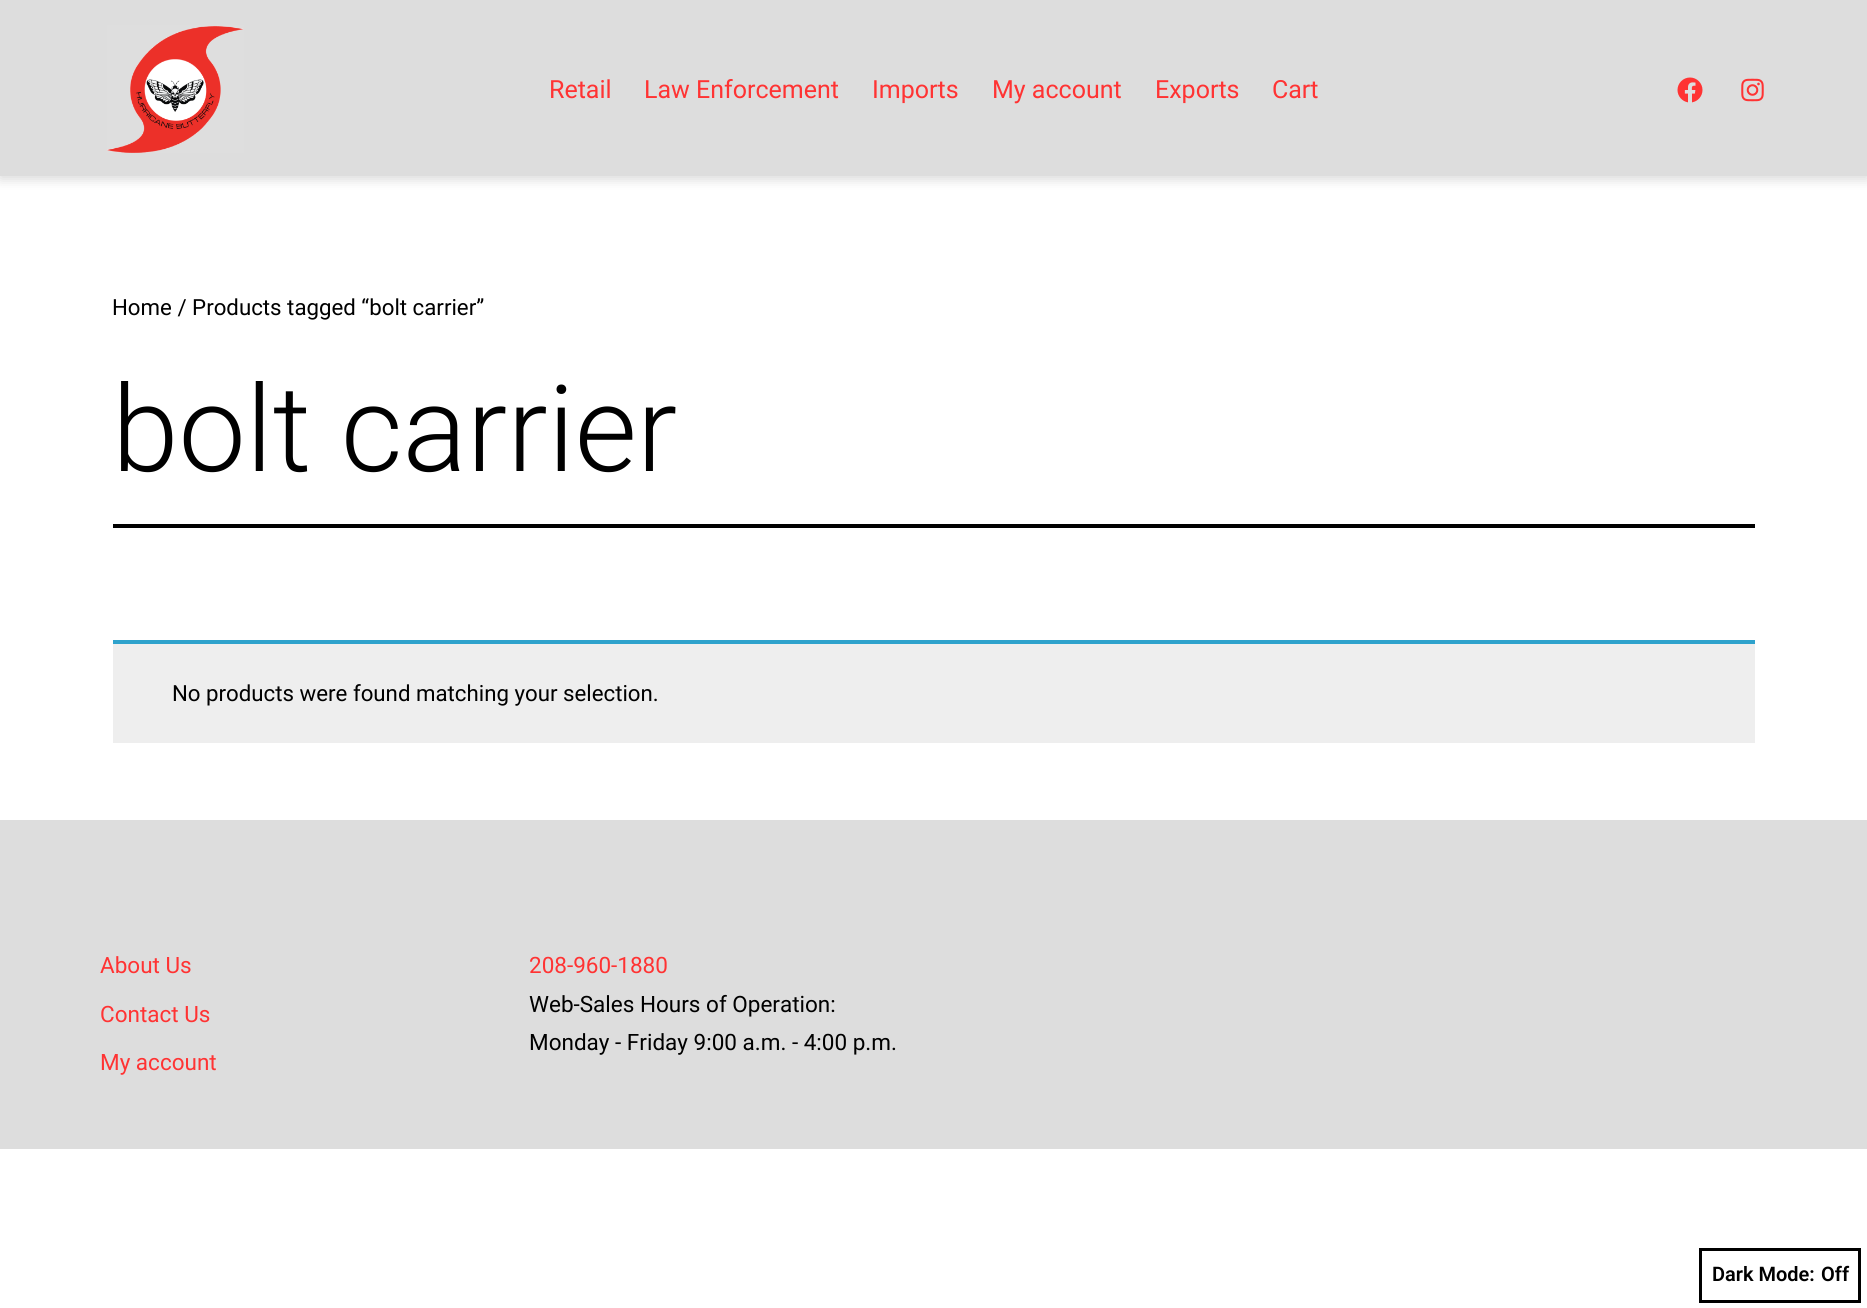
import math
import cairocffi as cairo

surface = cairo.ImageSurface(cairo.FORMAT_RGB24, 1867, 1308)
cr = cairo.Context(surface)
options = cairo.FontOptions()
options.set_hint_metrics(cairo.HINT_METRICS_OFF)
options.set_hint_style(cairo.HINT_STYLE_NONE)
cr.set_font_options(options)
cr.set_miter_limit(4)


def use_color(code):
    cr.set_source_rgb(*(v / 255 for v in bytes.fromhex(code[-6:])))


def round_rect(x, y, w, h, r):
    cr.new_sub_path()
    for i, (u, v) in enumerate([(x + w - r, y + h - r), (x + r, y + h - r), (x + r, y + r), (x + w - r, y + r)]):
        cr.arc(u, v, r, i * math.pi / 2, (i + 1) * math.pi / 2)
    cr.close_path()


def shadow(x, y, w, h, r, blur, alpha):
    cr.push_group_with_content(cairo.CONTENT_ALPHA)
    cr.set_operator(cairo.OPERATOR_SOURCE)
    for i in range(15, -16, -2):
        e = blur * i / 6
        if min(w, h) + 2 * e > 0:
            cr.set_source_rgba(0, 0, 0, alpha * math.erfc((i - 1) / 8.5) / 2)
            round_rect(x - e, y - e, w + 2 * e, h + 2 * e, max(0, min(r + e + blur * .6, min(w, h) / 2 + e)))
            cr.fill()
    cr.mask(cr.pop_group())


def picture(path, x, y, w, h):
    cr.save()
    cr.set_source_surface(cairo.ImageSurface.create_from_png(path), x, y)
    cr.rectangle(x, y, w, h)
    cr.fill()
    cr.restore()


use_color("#ffffff")
cr.paint()
use_color("#000000")
shadow(0, 3, 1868, 176, 0, 6, 0.16)
use_color("#dddddd")
cr.rectangle(0, 0, 1867, 176)
cr.fill()
picture("img1.png", 107, 25, 137, 128)
cr.select_font_face("Roboto")
cr.set_font_size(25)
use_color("#ff3333")
cr.move_to(549, 98)
cr.show_text("Retail")
cr.move_to(644, 98)
cr.show_text("Law Enforcement")
cr.move_to(872, 98)
cr.show_text("Imports")
cr.move_to(992, 98)
cr.show_text("My account")
cr.move_to(1155, 98)
cr.show_text("Exports")
cr.move_to(1272, 98)
cr.show_text("Cart")
picture("img2.png", 1677, 77, 26, 26)
picture("img3.png", 1741, 78, 23, 24)
cr.set_font_size(22.25)
use_color("#000000")
cr.move_to(112, 315)
cr.show_text("Home / Products tagged “bolt carrier”")
cr.rectangle(113, 524, 1642, 4)
cr.fill()
cr.select_font_face("Roboto Light")
cr.set_font_size(120)
cr.move_to(112, 471)
cr.show_text("bolt carrier")
use_color("#eeeeee")
cr.rectangle(113, 644, 1642, 99)
cr.fill()
use_color("#2ea2cc")
cr.rectangle(113, 640, 1642, 4)
cr.fill()
cr.select_font_face("Roboto")
cr.set_font_size(22.25)
use_color("#000000")
cr.move_to(172, 701)
cr.show_text("No products were found matching your selection.")
use_color("#dddddd")
cr.rectangle(0, 820, 1867, 329)
cr.fill()
cr.set_font_size(22.5)
use_color("#ff3333")
cr.move_to(100, 973)
cr.show_text("About Us")
cr.move_to(100, 1022)
cr.show_text("Contact Us")
cr.move_to(100, 1070)
cr.show_text("My account")
cr.move_to(529, 973)
cr.show_text("208-960-1880")
use_color("#000000")
cr.move_to(529, 1012)
cr.show_text("Web-Sales Hours of Operation:")
cr.move_to(529, 1050)
cr.show_text("Monday - Friday 9:00 a.m. - 4:00 p.m.")
cr.rectangle(1700.5, 1249.5, 159, 52)
cr.set_line_width(3)
cr.stroke()
cr.select_font_face("Roboto SemiBold")
cr.set_font_size(20)
cr.move_to(1712, 1281)
cr.show_text("Dark Mode:")
cr.move_to(1821, 1281)
cr.show_text("Off")
surface.write_to_png("result.png")
